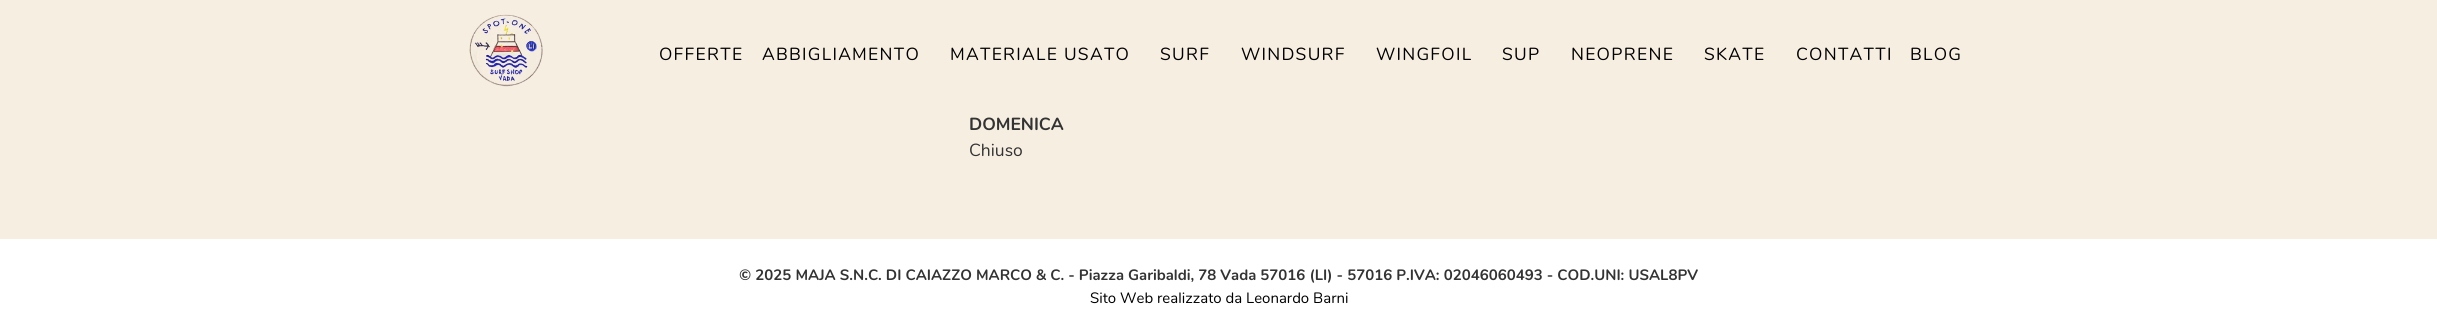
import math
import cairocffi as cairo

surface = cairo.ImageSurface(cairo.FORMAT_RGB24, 2437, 333)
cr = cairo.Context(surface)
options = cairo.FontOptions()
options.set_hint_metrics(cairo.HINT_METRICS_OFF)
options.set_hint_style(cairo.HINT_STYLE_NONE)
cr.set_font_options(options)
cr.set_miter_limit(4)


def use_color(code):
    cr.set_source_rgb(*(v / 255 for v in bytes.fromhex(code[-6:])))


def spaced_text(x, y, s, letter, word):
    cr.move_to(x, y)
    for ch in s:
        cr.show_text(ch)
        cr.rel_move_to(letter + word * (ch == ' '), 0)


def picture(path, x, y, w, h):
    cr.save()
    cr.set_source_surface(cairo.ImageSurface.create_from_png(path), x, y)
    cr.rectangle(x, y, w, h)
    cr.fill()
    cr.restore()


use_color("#ffffff")
cr.paint()
use_color("#f6eee1")
cr.rectangle(0, 0, 2437, 239)
cr.fill()
picture("img1.png", 469, 14, 74, 73)
cr.select_font_face("Nunito")
cr.set_font_size(17.5)
use_color("#000000")
spaced_text(659, 60, "OFFERTE", 1.25, 0)
spaced_text(762, 60, "ABBIGLIAMENTO", 1.25, 0)
spaced_text(950, 60, "MATERIALE USATO", 1.25, 0)
spaced_text(1160, 60, "SURF", 1.25, 0)
spaced_text(1241, 60, "WINDSURF", 1.25, 0)
spaced_text(1376, 60, "WINGFOIL", 1.25, 0)
spaced_text(1502, 60, "SUP", 1.25, 0)
spaced_text(1571, 60, "NEOPRENE", 1.25, 0)
spaced_text(1704, 60, "SKATE", 1.25, 0)
spaced_text(1796, 60, "CONTATTI", 1.25, 0)
spaced_text(1910, 60, "BLOG", 1.25, 0)
cr.select_font_face("Nunito", cairo.FONT_SLANT_NORMAL, cairo.FONT_WEIGHT_BOLD)
use_color("#333333")
cr.move_to(969, 130)
cr.show_text("DOMENICA")
cr.select_font_face("Nunito")
cr.move_to(969, 156)
cr.show_text("Chiuso")
cr.select_font_face("Nunito", cairo.FONT_SLANT_NORMAL, cairo.FONT_WEIGHT_BOLD)
cr.set_font_size(15)
cr.move_to(739, 280)
cr.show_text("© 2025 MAJA S.N.C. DI CAIAZZO MARCO & C. - Piazza Garibaldi, 78 Vada 57016 (LI) - 57016 P.IVA: 02046060493 - COD.UNI: USAL8PV")
cr.select_font_face("Nunito")
use_color("#000000")
cr.move_to(1090, 303)
cr.show_text("Sito Web realizzato da Leonardo Barni")
surface.write_to_png("result.png")
